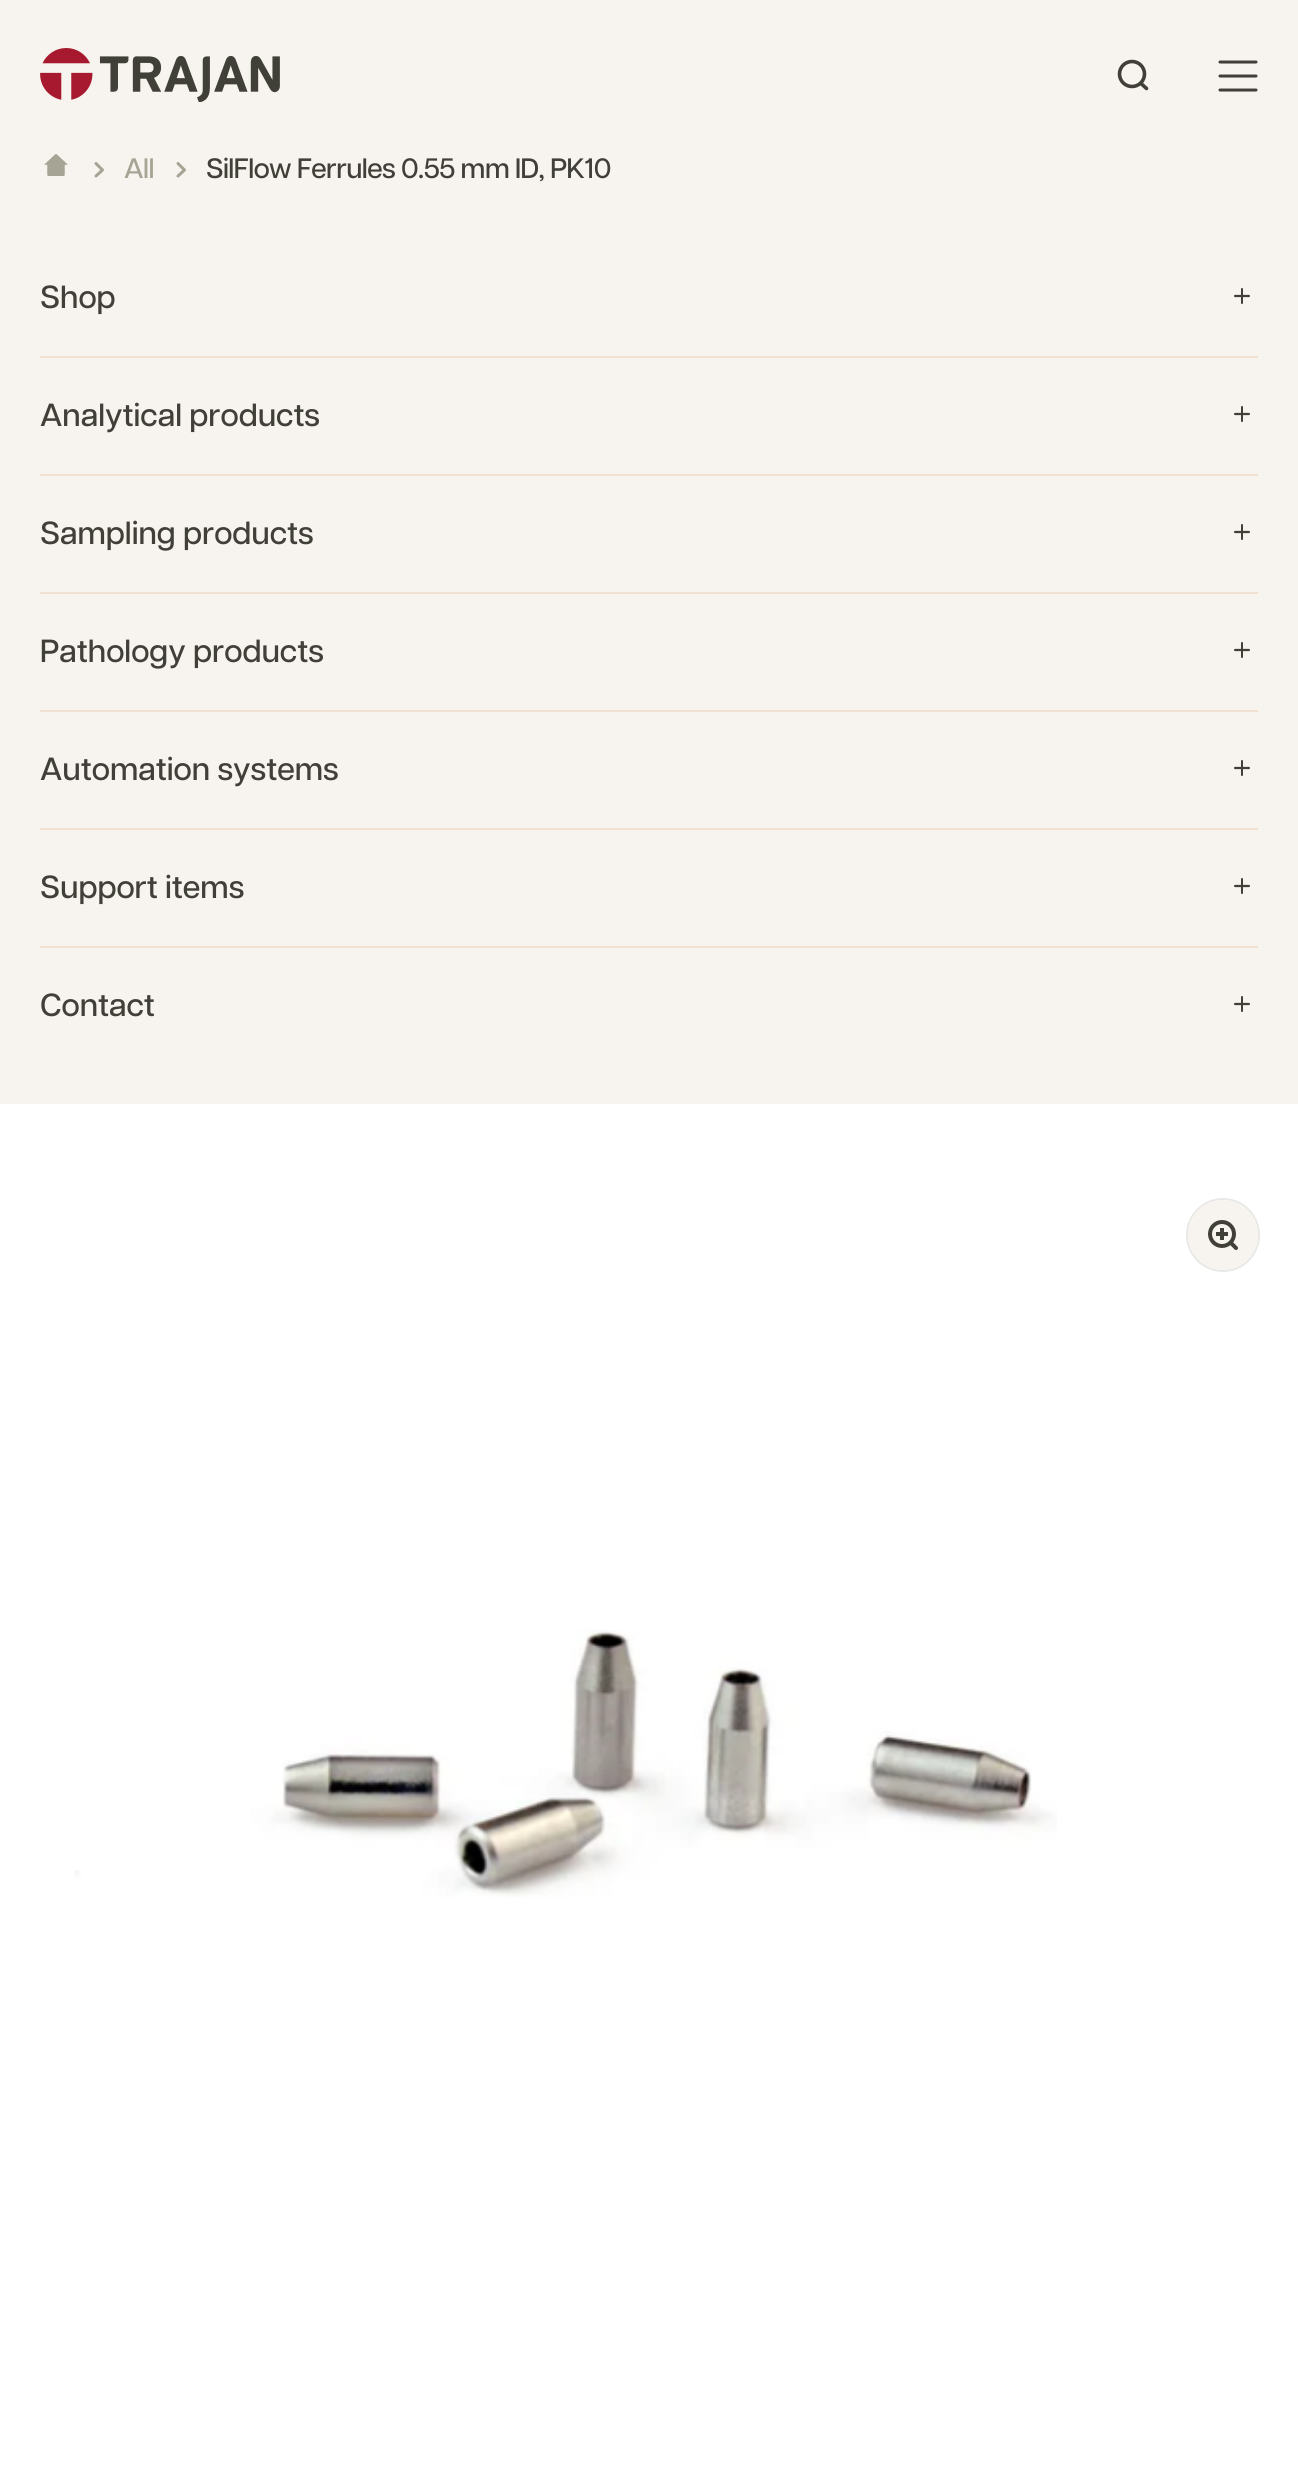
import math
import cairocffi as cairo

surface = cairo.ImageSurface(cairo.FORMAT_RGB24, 1298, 2474)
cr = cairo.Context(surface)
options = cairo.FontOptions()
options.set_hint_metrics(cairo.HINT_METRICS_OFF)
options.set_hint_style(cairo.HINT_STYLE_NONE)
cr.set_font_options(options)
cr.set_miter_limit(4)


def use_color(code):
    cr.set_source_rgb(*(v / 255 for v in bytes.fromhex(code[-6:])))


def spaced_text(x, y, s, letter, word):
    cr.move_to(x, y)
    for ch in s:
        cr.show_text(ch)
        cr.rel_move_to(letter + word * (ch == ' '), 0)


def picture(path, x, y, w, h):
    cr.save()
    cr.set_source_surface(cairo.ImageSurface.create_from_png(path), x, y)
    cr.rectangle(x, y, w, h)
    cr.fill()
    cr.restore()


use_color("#f7f3ee")
cr.paint()
picture("img1.png", 40, 48, 240, 54)
cr.arc(1132, 74, 12.5, 0, 2 * math.pi)
use_color("#403f38")
cr.set_line_width(3.6)
cr.stroke()
cr.new_path()
cr.move_to(1141, 83.5)
cr.line_to(1146.5, 88.5)
cr.set_line_cap(cairo.LINE_CAP_ROUND)
cr.set_line_join(cairo.LINE_JOIN_ROUND)
cr.stroke()
cr.new_path()
cr.move_to(1220, 62)
cr.line_to(1256, 62)
cr.move_to(1220, 76)
cr.line_to(1256, 76)
cr.move_to(1220, 90)
cr.line_to(1256, 90)
cr.set_line_width(3)
cr.set_line_join(cairo.LINE_JOIN_MITER)
cr.stroke()
picture("img2.png", 44, 154, 24, 22)
cr.new_path()
cr.move_to(96, 163.5)
cr.line_to(102.5, 170)
cr.line_to(96, 176)
use_color("#a6a494")
cr.set_line_join(cairo.LINE_JOIN_ROUND)
cr.stroke()
cr.select_font_face("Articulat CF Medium")
cr.set_font_size(28)
spaced_text(124, 178, "All", -0.55, 0)
cr.new_path()
cr.move_to(178, 163.5)
cr.line_to(184.5, 170)
cr.line_to(178, 176)
cr.stroke()
use_color("#403f38")
spaced_text(206, 178, "SilFlow Ferrules 0.55 mm ID, PK10", -0.55, 0)
use_color("#efe0d0")
cr.rectangle(40, 356, 1218, 2)
cr.fill()
cr.set_font_size(32)
use_color("#403f38")
cr.move_to(40, 308)
cr.show_text("Shop")
picture("img3.png", 1234, 288, 16, 16)
use_color("#efe0d0")
cr.rectangle(40, 474, 1218, 2)
cr.fill()
use_color("#403f38")
cr.move_to(40, 426)
cr.show_text("Analytical products")
picture("img3.png", 1234, 406, 16, 16)
use_color("#efe0d0")
cr.rectangle(40, 592, 1218, 2)
cr.fill()
use_color("#403f38")
cr.move_to(40, 544)
cr.show_text("Sampling products")
picture("img3.png", 1234, 524, 16, 16)
use_color("#efe0d0")
cr.rectangle(40, 710, 1218, 2)
cr.fill()
use_color("#403f38")
cr.move_to(40, 662)
cr.show_text("Pathology products")
picture("img3.png", 1234, 642, 16, 16)
use_color("#efe0d0")
cr.rectangle(40, 828, 1218, 2)
cr.fill()
use_color("#403f38")
cr.move_to(40, 780)
cr.show_text("Automation systems")
picture("img3.png", 1234, 760, 16, 16)
use_color("#efe0d0")
cr.rectangle(40, 946, 1218, 2)
cr.fill()
use_color("#403f38")
cr.move_to(40, 898)
cr.show_text("Support items")
picture("img3.png", 1234, 878, 16, 16)
cr.move_to(40, 1016)
cr.show_text("Contact")
picture("img3.png", 1234, 996, 16, 16)
use_color("#ffffff")
cr.rectangle(0, 1104, 1298, 1370)
cr.fill()
cr.arc(1223, 1235, 36, 0, 2 * math.pi)
use_color("#e8e8e7")
cr.set_line_width(2)
cr.set_line_cap(cairo.LINE_CAP_BUTT)
cr.set_line_join(cairo.LINE_JOIN_MITER)
cr.stroke()
use_color("#f7f3ee")
cr.arc(1223, 1235, 35, 0, 2 * math.pi)
cr.fill()
cr.arc(1222, 1234, 12, 0, 2 * math.pi)
use_color("#403f38")
cr.set_line_width(4)
cr.stroke()
cr.new_path()
cr.move_to(1231, 1243)
cr.line_to(1236, 1248)
cr.set_line_cap(cairo.LINE_CAP_ROUND)
cr.set_line_join(cairo.LINE_JOIN_ROUND)
cr.stroke()
cr.new_path()
cr.move_to(1222, 1228)
cr.line_to(1222, 1240)
cr.move_to(1216, 1234)
cr.line_to(1228, 1234)
cr.set_line_cap(cairo.LINE_CAP_BUTT)
cr.set_line_join(cairo.LINE_JOIN_MITER)
cr.stroke()
picture("img4.png", 74, 1629, 983, 269)
surface.write_to_png("result.png")
